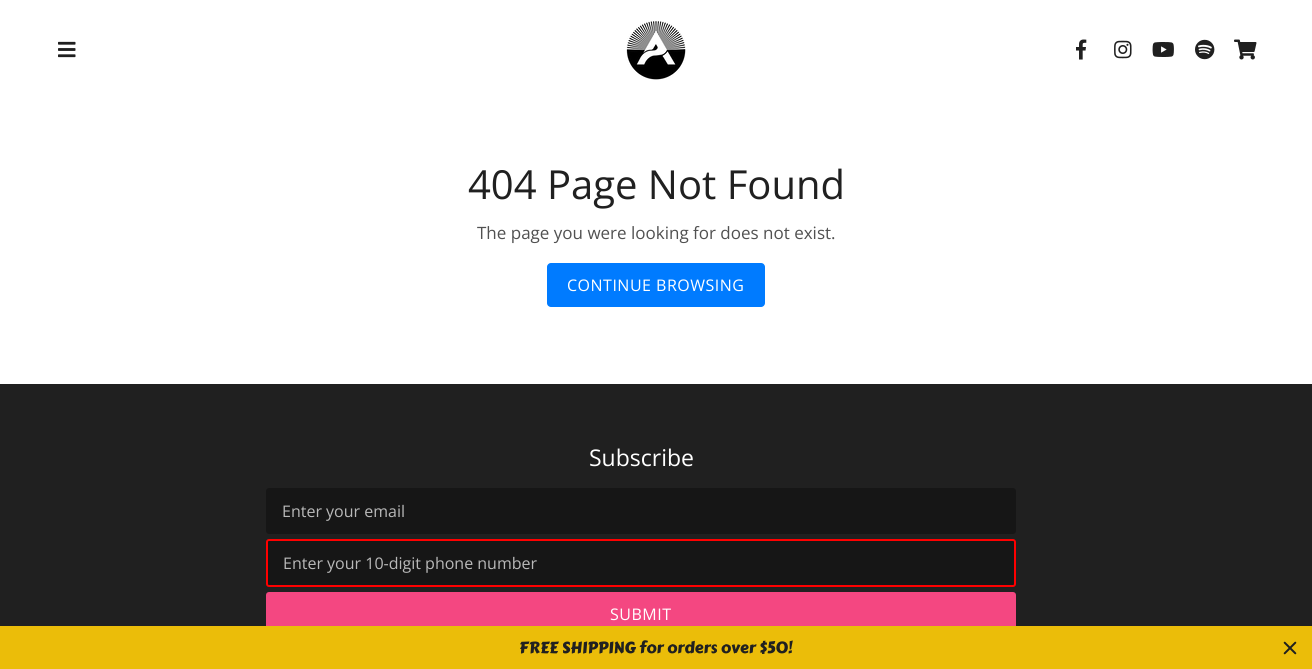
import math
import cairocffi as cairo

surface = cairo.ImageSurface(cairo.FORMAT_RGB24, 1312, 669)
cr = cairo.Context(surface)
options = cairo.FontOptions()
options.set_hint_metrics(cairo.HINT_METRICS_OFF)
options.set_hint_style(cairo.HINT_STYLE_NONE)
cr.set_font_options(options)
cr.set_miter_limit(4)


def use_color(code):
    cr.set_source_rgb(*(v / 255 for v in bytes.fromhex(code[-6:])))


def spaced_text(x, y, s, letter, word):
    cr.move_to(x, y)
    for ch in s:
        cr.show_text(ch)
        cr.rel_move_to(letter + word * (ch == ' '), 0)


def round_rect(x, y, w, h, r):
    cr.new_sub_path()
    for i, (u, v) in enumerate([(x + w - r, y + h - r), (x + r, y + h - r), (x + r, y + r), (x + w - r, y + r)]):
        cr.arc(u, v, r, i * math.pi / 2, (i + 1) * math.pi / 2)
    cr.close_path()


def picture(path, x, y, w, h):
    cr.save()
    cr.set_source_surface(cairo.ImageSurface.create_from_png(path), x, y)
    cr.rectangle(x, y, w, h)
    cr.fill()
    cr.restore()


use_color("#ffffff")
cr.paint()
picture("img1.png", 58, 41, 18, 17)
picture("img2.png", 626, 21, 60, 59)
picture("img3.png", 1076, 39, 11, 21)
picture("img4.png", 1114, 40, 18, 19)
picture("img5.png", 1152, 42, 22, 15)
picture("img6.png", 1195, 39, 20, 21)
picture("img7.png", 1234, 39, 23, 21)
cr.select_font_face("Open Sans")
cr.set_font_size(40)
use_color("#202020")
cr.move_to(468, 199)
cr.show_text("404 Page Not Found")
cr.set_font_size(17)
use_color("#515151")
cr.move_to(477, 239)
cr.show_text("The page you were looking for does not exist.")
use_color("#007bff")
round_rect(547, 263, 218, 44, 4)
cr.fill()
cr.set_font_size(16)
use_color("#ffffff")
spaced_text(567, 291, "CONTINUE BROWSING", 0.5, 0)
use_color("#202020")
cr.rectangle(0, 384, 1312, 242)
cr.fill()
cr.set_font_size(23)
use_color("#ffffff")
cr.move_to(589, 466)
cr.show_text("Subscribe")
use_color("#161616")
round_rect(266, 488, 750, 46, 3)
cr.fill()
cr.set_font_size(16)
use_color("#b9b9b9")
cr.move_to(282, 517)
cr.show_text("Enter your email")
use_color("#161616")
round_rect(267, 540, 748, 46, 2)
cr.fill_preserve()
use_color("#ff0000")
cr.stroke()
use_color("#b9b9b9")
cr.move_to(283, 569)
cr.show_text("Enter your 10-digit phone number")
use_color("#f44781")
round_rect(266, 592, 750, 44, 3)
cr.fill()
use_color("#ffffff")
spaced_text(610, 620, "SUBMIT", 0.5, 0)
use_color("#ebbd09")
cr.rectangle(0, 626, 1312, 43)
cr.fill()
cr.select_font_face("Carter One")
use_color("#202020")
cr.move_to(519, 653)
cr.show_text("FREE SHIPPING for orders over $50!")
picture("img8.png", 1283, 641, 14, 14)
surface.write_to_png("result.png")
